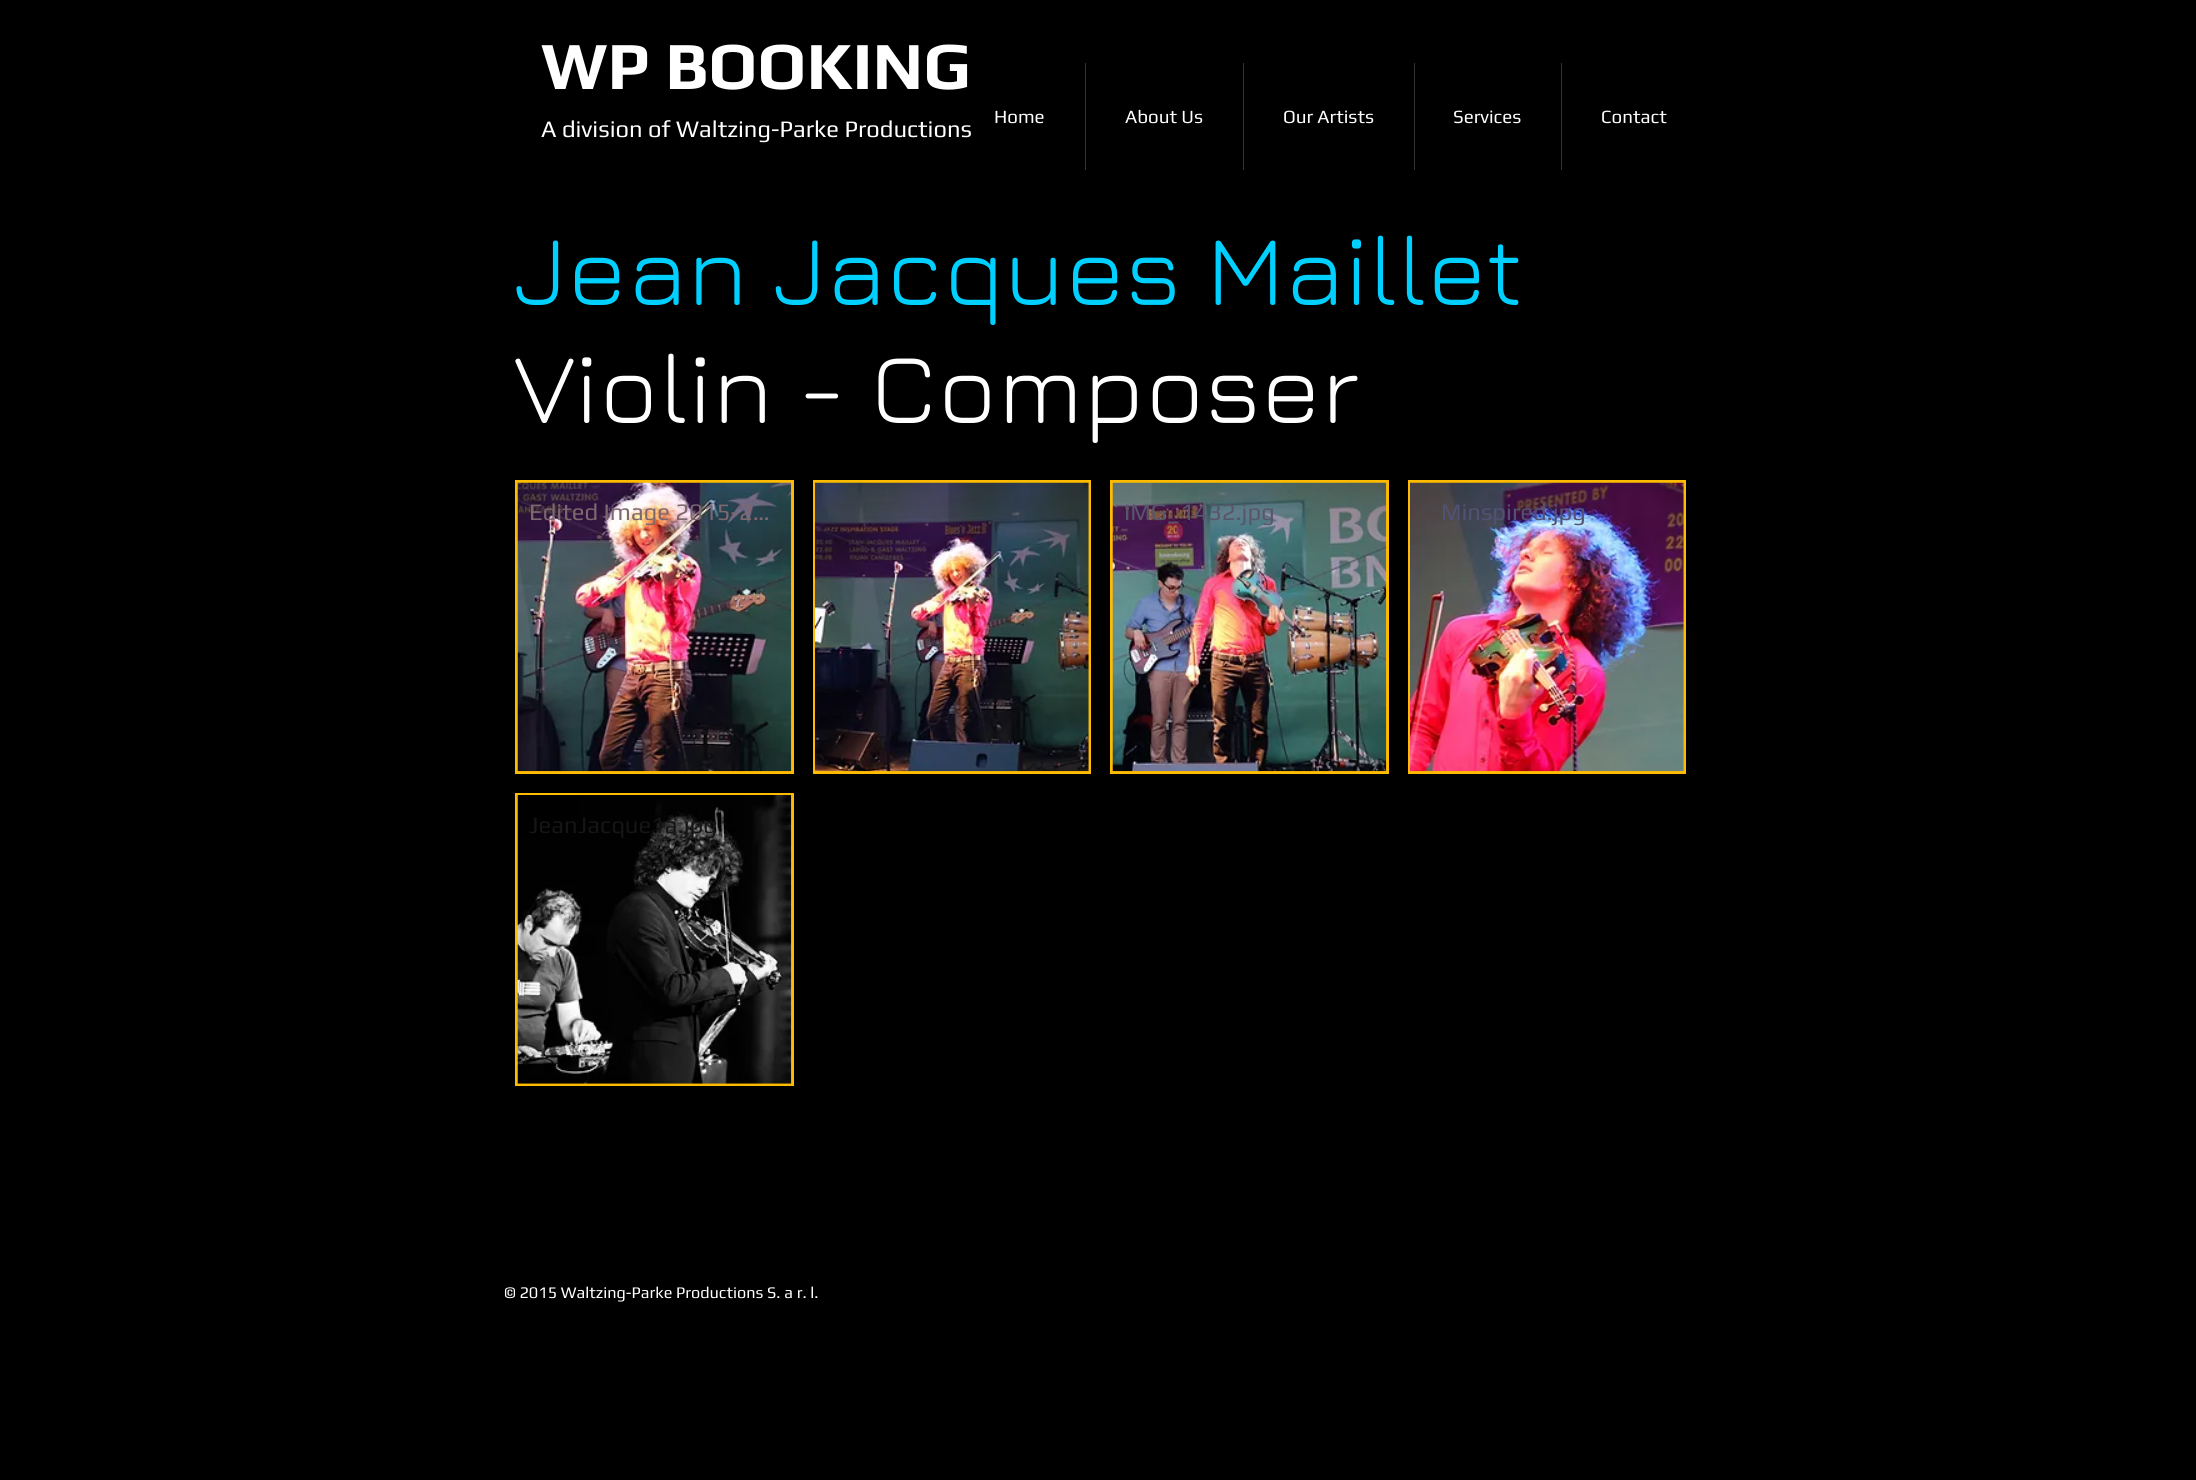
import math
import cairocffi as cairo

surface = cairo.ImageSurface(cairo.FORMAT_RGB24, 2196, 1480)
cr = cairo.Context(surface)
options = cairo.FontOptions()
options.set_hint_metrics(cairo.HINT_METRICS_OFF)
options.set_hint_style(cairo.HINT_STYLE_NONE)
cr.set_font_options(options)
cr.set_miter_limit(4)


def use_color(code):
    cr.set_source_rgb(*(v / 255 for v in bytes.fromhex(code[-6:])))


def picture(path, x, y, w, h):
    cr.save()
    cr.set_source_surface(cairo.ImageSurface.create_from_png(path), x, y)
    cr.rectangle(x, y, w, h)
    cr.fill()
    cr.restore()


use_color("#000000")
cr.paint()
cr.select_font_face("Play", cairo.FONT_SLANT_NORMAL, cairo.FONT_WEIGHT_BOLD)
cr.set_font_size(67.5)
use_color("#ffffff")
cr.move_to(541, 89)
cr.show_text("WP BOOKING")
cr.select_font_face("Play")
cr.set_font_size(23.75)
cr.move_to(541, 137)
cr.show_text("A division of Waltzing-Parke Productions")
cr.set_font_size(18.75)
cr.move_to(994, 123)
cr.show_text("Home")
use_color("#333333")
cr.rectangle(1085, 63, 1, 107)
cr.fill()
use_color("#ffffff")
cr.move_to(1125, 123)
cr.show_text("About Us")
use_color("#333333")
cr.rectangle(1243, 63, 1, 107)
cr.fill()
use_color("#ffffff")
cr.move_to(1283, 123)
cr.show_text("Our Artists")
use_color("#333333")
cr.rectangle(1414, 63, 1, 107)
cr.fill()
use_color("#ffffff")
cr.move_to(1453, 123)
cr.show_text("Services")
use_color("#333333")
cr.rectangle(1561, 63, 1, 107)
cr.fill()
use_color("#ffffff")
cr.move_to(1601, 123)
cr.show_text("Contact")
cr.select_font_face("Jura")
cr.set_font_size(100)
use_color("#00d0ff")
cr.move_to(514, 305)
cr.show_text("Jean Jacques Maillet")
use_color("#ffffff")
cr.move_to(514, 423)
cr.show_text("Violin - Composer")
use_color("#ffbb00")
cr.rectangle(515, 480, 279, 294)
cr.fill()
picture("img1.png", 517, 482, 275, 290)
cr.select_font_face("Play")
cr.set_font_size(23.75)
use_color("#7e6870")
cr.move_to(529, 520)
cr.show_text("Edited Image 2015-2…")
use_color("#ffbb00")
cr.rectangle(813, 480, 278, 294)
cr.fill()
picture("img2.png", 815, 482, 274, 290)
cr.rectangle(1110, 480, 279, 294)
cr.fill()
picture("img3.png", 1112, 482, 275, 290)
use_color("#58566b")
cr.move_to(1124, 520)
cr.show_text("IMG_1432.jpg")
use_color("#ffbb00")
cr.rectangle(1408, 480, 278, 294)
cr.fill()
picture("img4.png", 1410, 482, 274, 290)
use_color("#525174")
cr.move_to(1441, 520)
cr.show_text("Minspired.jpg")
use_color("#ffbb00")
cr.rectangle(515, 793, 279, 293)
cr.fill()
picture("img5.png", 517, 795, 275, 289)
use_color("#151515")
cr.move_to(529, 833)
cr.show_text("JeanJacque1a.jpg")
cr.set_font_size(16.25)
use_color("#ffffff")
cr.move_to(504, 1298)
cr.show_text("© 2015 Waltzing-Parke Productions S. a r. l.")
surface.write_to_png("result.png")
